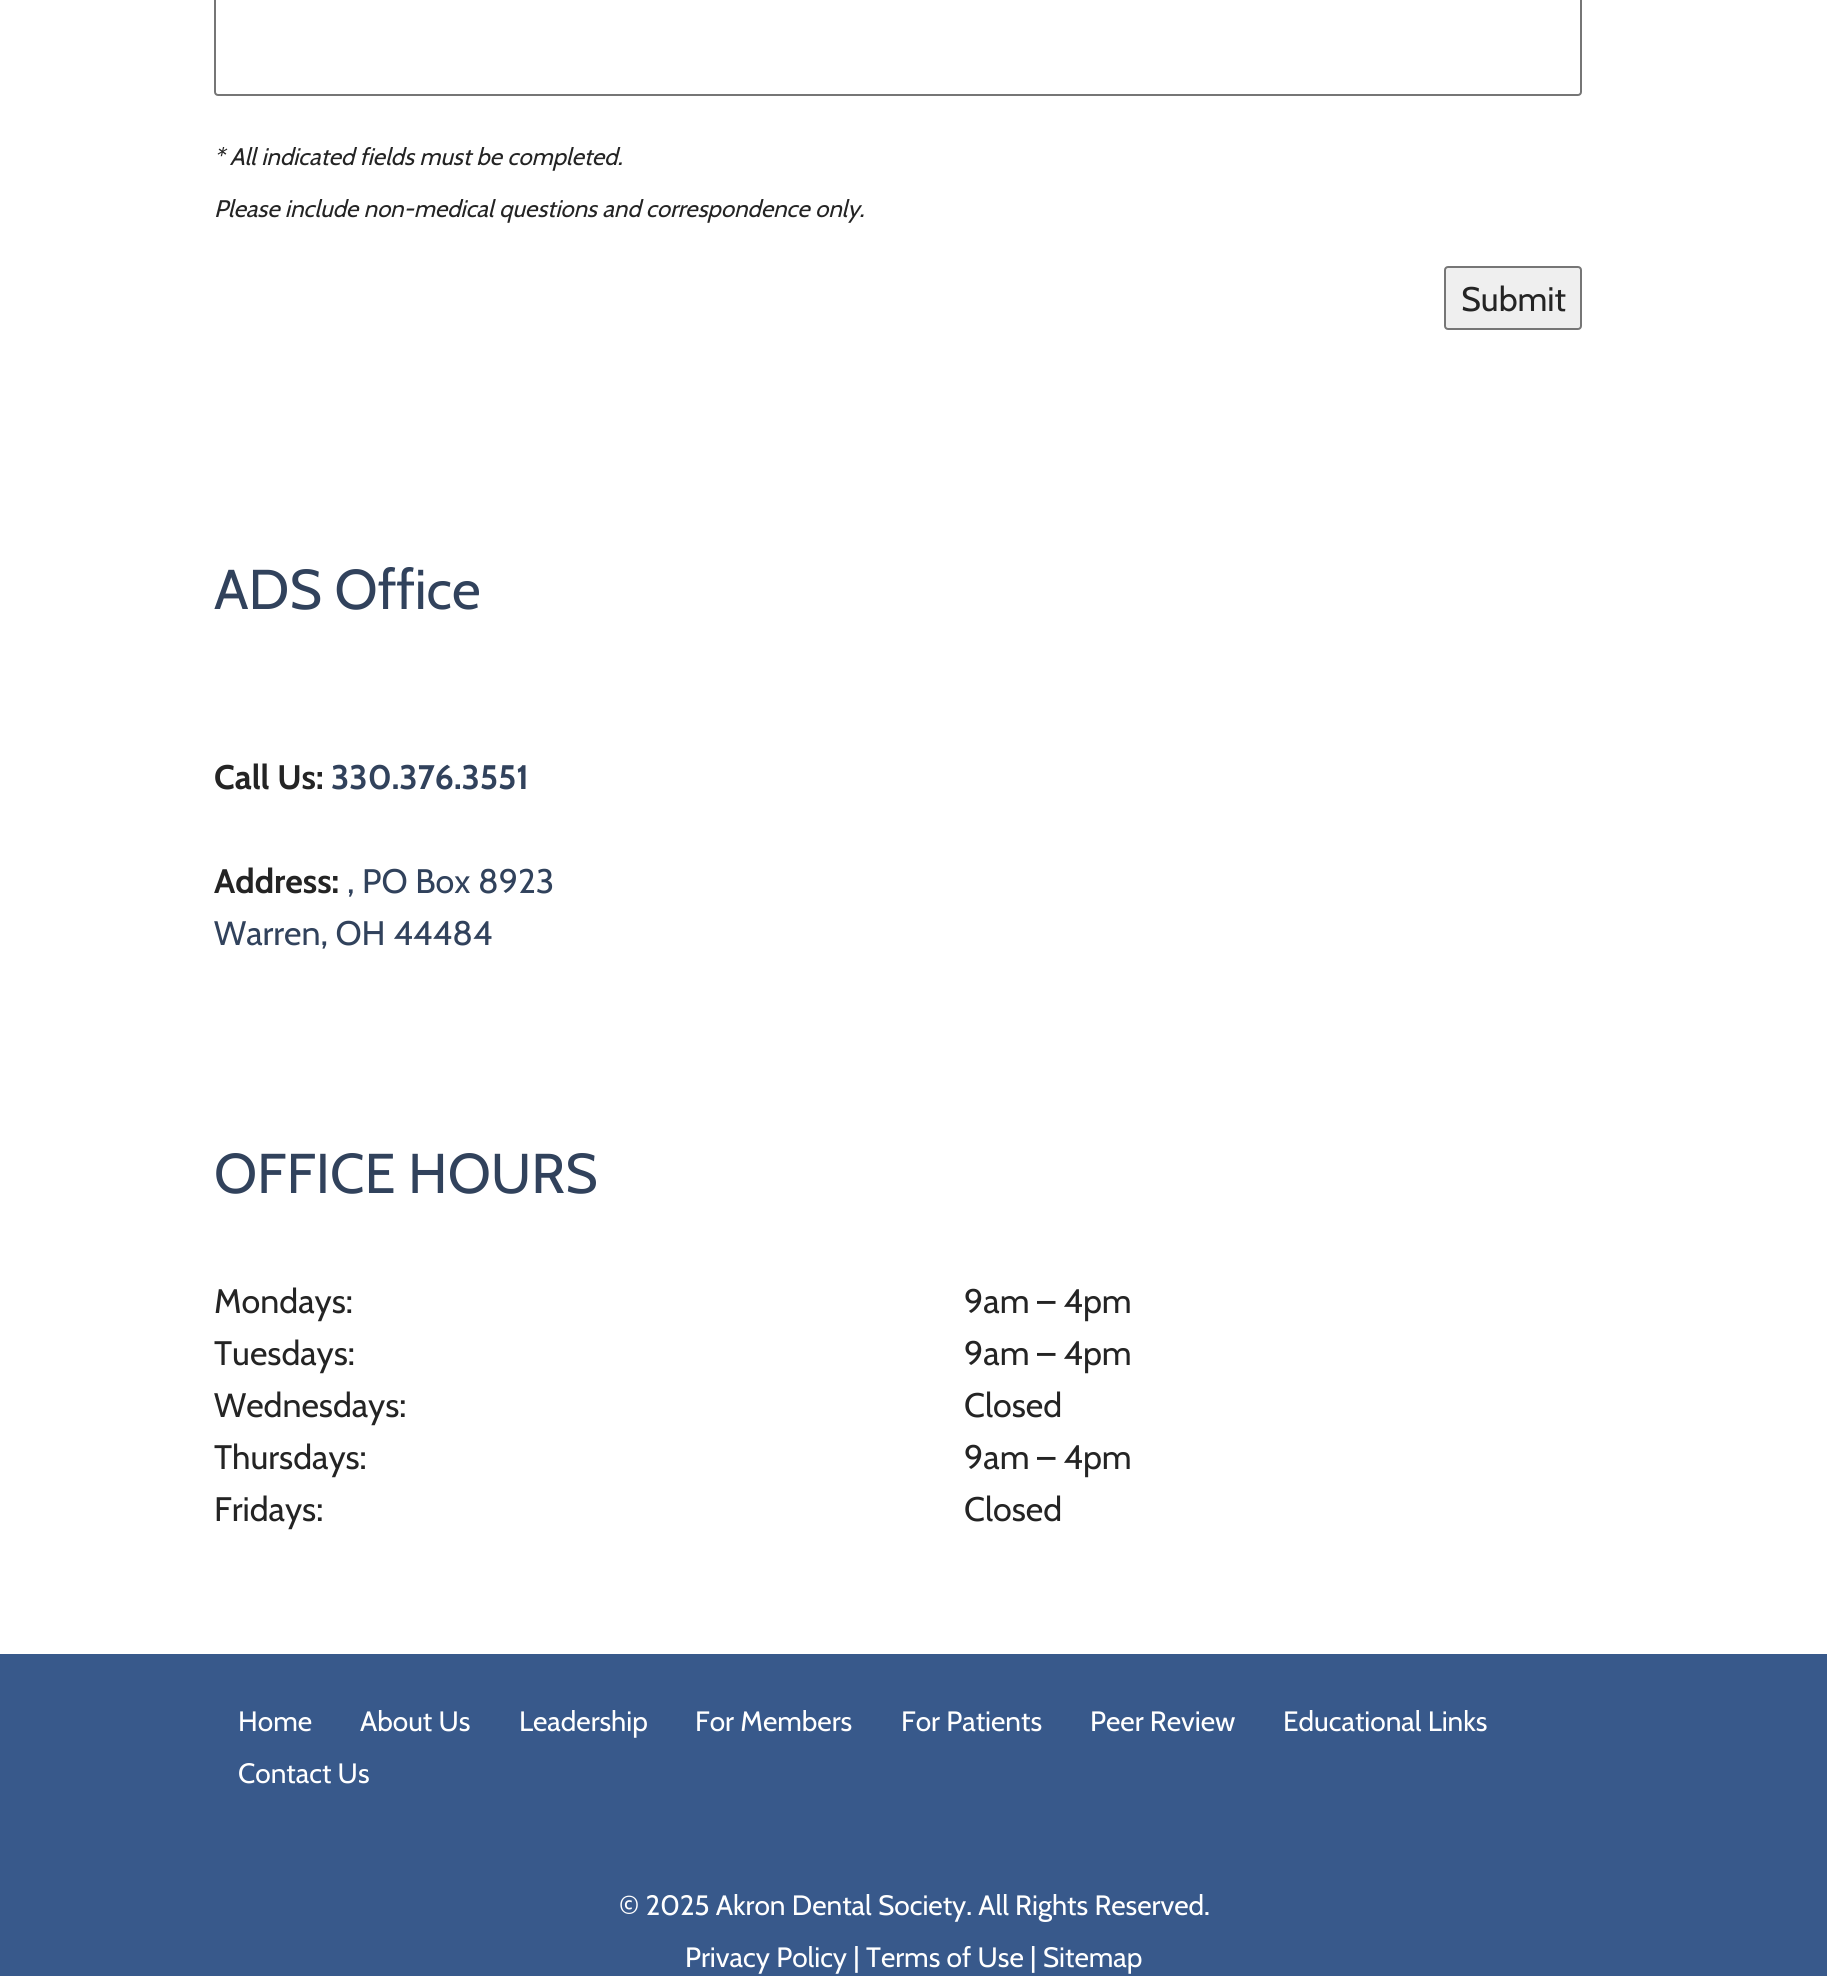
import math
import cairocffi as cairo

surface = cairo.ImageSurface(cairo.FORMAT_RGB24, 1827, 1976)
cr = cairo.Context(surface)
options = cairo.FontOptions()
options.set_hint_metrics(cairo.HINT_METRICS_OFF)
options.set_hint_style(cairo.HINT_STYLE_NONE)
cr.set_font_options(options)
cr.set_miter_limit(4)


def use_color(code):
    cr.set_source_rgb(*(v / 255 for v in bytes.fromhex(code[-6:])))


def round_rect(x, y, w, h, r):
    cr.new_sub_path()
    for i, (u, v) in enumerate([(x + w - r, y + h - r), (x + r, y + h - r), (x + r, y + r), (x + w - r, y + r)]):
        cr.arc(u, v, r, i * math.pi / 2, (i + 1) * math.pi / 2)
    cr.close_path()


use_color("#ffffff")
cr.paint()
round_rect(215, -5, 1366, 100, 3)
use_color("#767676")
cr.stroke()
cr.select_font_face("Cabin", cairo.FONT_SLANT_ITALIC)
cr.set_font_size(24)
use_color("#242424")
cr.move_to(214, 165)
cr.show_text("* All indicated fields must be completed.")
cr.move_to(214, 217)
cr.show_text("Please include non-medical questions and correspondence only.")
use_color("#efefef")
round_rect(1445, 267, 136, 62, 3)
cr.fill_preserve()
use_color("#767676")
cr.stroke()
cr.select_font_face("Cabin")
cr.set_font_size(34)
use_color("#242424")
cr.move_to(1461, 311)
cr.show_text("Submit")
cr.set_font_size(56)
use_color("#31425c")
cr.move_to(214, 609)
cr.show_text("ADS Office")
cr.select_font_face("Cabin", cairo.FONT_SLANT_NORMAL, cairo.FONT_WEIGHT_BOLD)
cr.set_font_size(34)
use_color("#242424")
cr.move_to(214, 789)
cr.show_text("Call Us:")
use_color("#31425c")
cr.move_to(331, 789)
cr.show_text("330.376.3551")
use_color("#242424")
cr.move_to(214, 893)
cr.show_text("Address:")
cr.select_font_face("Cabin")
use_color("#31425c")
cr.move_to(347, 893)
cr.show_text(", PO Box 8923")
cr.move_to(214, 945)
cr.show_text("Warren, OH 44484")
cr.set_font_size(56)
cr.move_to(214, 1193)
cr.show_text("OFFICE HOURS")
cr.set_font_size(34)
use_color("#242424")
cr.move_to(214, 1313)
cr.show_text("Mondays:")
cr.move_to(964, 1313)
cr.show_text("9am – 4pm")
cr.move_to(214, 1365)
cr.show_text("Tuesdays:")
cr.move_to(964, 1365)
cr.show_text("9am – 4pm")
cr.move_to(214, 1417)
cr.show_text("Wednesdays:")
cr.move_to(964, 1417)
cr.show_text("Closed")
cr.move_to(214, 1469)
cr.show_text("Thursdays:")
cr.move_to(964, 1469)
cr.show_text("9am – 4pm")
cr.move_to(214, 1521)
cr.show_text("Fridays:")
cr.move_to(964, 1521)
cr.show_text("Closed")
use_color("#38598b")
cr.rectangle(0, 1654, 1827, 322)
cr.fill()
cr.set_font_size(28)
use_color("#ffffff")
cr.move_to(238, 1731)
cr.show_text("Home")
cr.move_to(360, 1731)
cr.show_text("About Us")
cr.move_to(519, 1731)
cr.show_text("Leadership")
cr.move_to(695, 1731)
cr.show_text("For Members")
cr.move_to(901, 1731)
cr.show_text("For Patients")
cr.move_to(1090, 1731)
cr.show_text("Peer Review")
cr.move_to(1283, 1731)
cr.show_text("Educational Links")
cr.move_to(238, 1783)
cr.show_text("Contact Us")
cr.move_to(619, 1915)
cr.show_text("© 2025 Akron Dental Society. All Rights Reserved.")
cr.move_to(685, 1967)
cr.show_text("Privacy Policy | Terms of Use | Sitemap")
surface.write_to_png("result.png")
